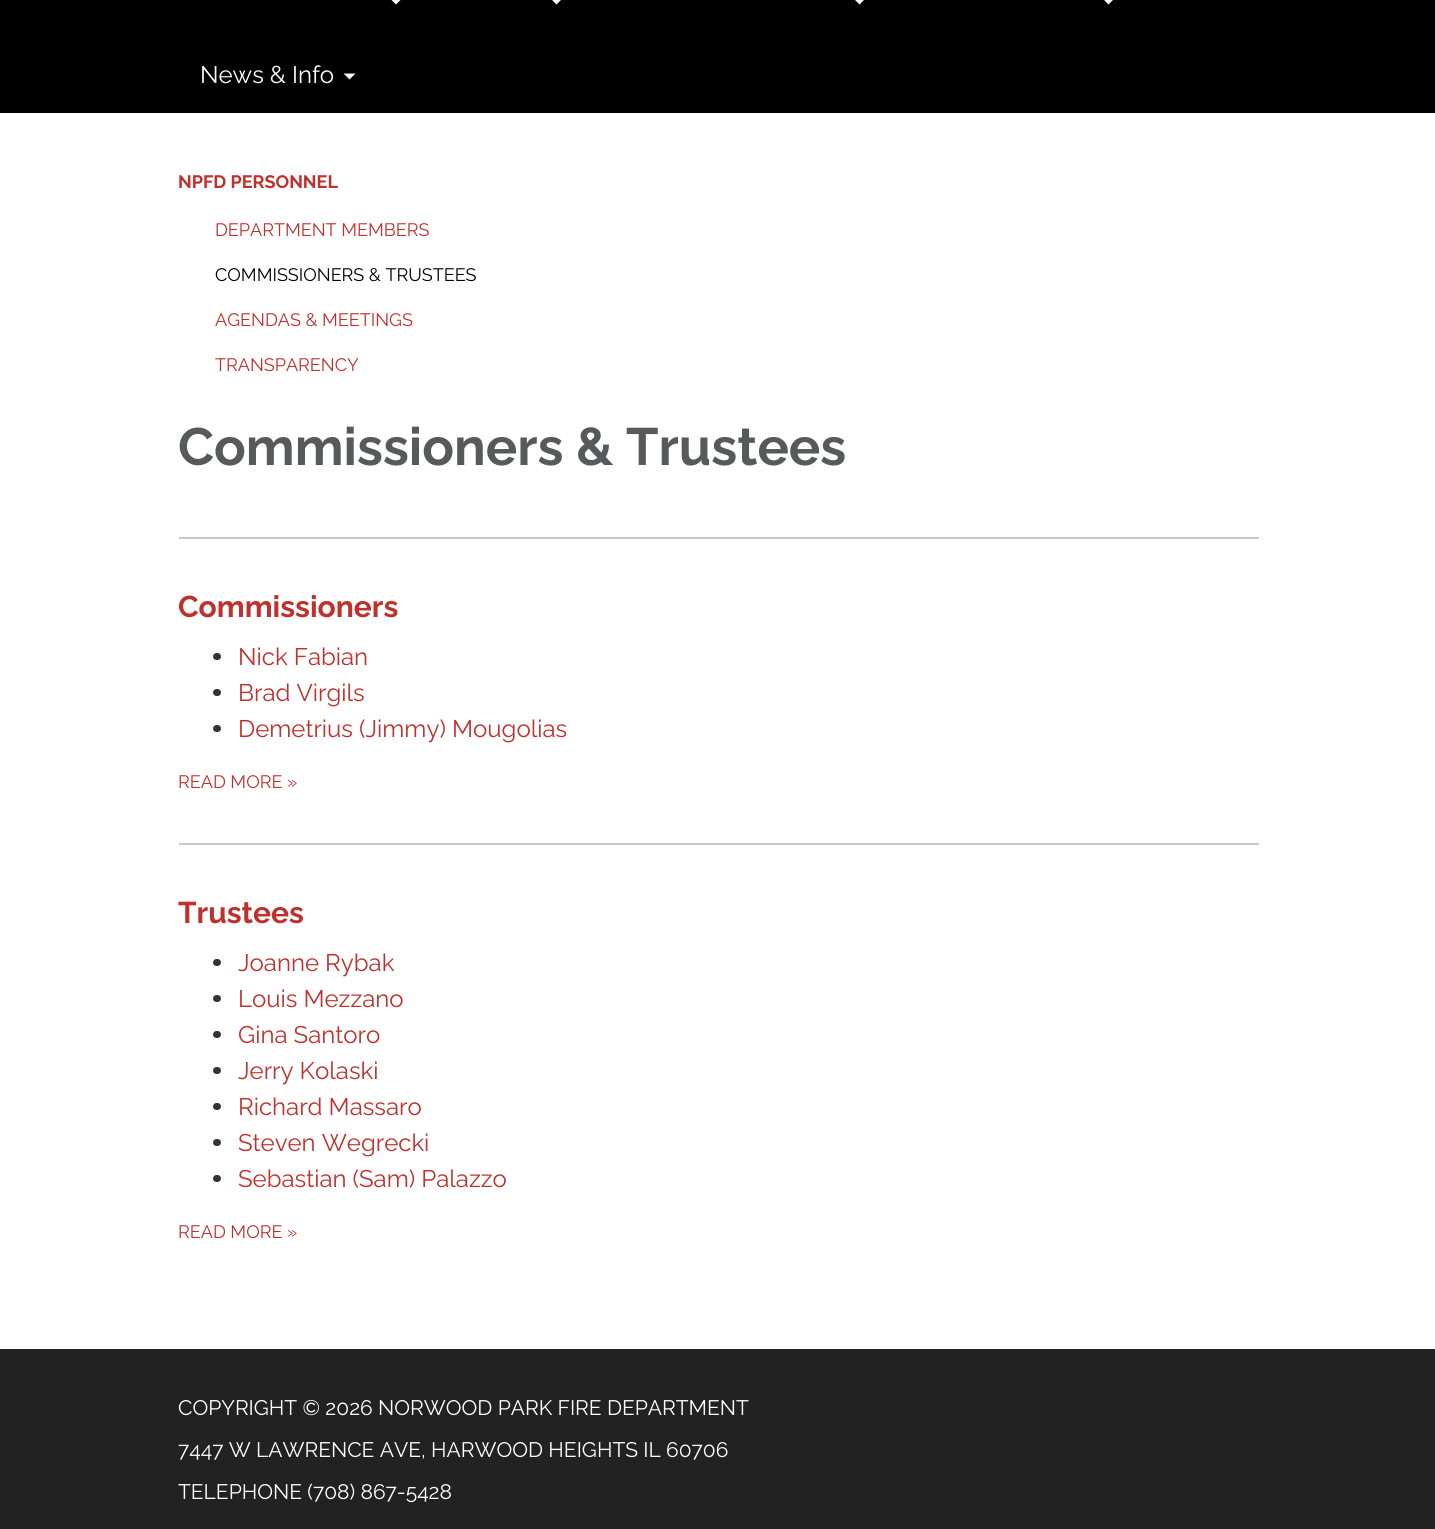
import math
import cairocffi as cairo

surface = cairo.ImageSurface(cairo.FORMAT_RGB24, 1435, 1529)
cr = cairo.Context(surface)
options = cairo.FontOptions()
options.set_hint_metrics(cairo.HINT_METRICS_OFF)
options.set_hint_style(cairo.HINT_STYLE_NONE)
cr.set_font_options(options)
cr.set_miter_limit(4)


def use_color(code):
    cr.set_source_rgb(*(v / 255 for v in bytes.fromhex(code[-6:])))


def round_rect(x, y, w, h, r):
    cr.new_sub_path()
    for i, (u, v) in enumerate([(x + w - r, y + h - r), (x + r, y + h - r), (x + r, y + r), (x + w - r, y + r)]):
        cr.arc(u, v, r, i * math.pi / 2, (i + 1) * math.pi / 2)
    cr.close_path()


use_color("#222222")
cr.paint()
use_color("#000000")
cr.rectangle(0, 0, 1435, 113)
cr.fill()
use_color("#ffffff")
cr.new_path()
cr.move_to(390, -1.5)
cr.line_to(402, -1.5)
cr.line_to(396, 4.5)
cr.close_path()
cr.fill()
cr.new_path()
cr.move_to(550.5, -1.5)
cr.line_to(562.5, -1.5)
cr.line_to(556.5, 4.5)
cr.close_path()
cr.fill()
cr.new_path()
cr.move_to(853.5, -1.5)
cr.line_to(865.5, -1.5)
cr.line_to(859.5, 4.5)
cr.close_path()
cr.fill()
cr.new_path()
cr.move_to(1102.5, -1.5)
cr.line_to(1114.5, -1.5)
cr.line_to(1108.5, 4.5)
cr.close_path()
cr.fill()
cr.select_font_face("Raleway")
cr.set_font_size(24)
cr.move_to(200, 83)
cr.show_text("News & Info")
cr.new_path()
cr.move_to(343.5, 73.5)
cr.line_to(355.5, 73.5)
cr.line_to(349.5, 79.5)
cr.close_path()
cr.fill()
cr.rectangle(0, 113, 1435, 1236)
cr.fill()
cr.select_font_face("Raleway", cairo.FONT_SLANT_NORMAL, cairo.FONT_WEIGHT_BOLD)
cr.set_font_size(18)
use_color("#be312d")
cr.move_to(178, 188)
cr.show_text("NPFD PERSONNEL")
cr.select_font_face("Raleway")
cr.move_to(215, 236)
cr.show_text("DEPARTMENT MEMBERS")
use_color("#000000")
cr.move_to(215, 281)
cr.show_text("COMMISSIONERS & TRUSTEES")
use_color("#be312d")
cr.move_to(215, 326)
cr.show_text("AGENDAS & MEETINGS")
cr.move_to(215, 371)
cr.show_text("TRANSPARENCY")
cr.select_font_face("Raleway", cairo.FONT_SLANT_NORMAL, cairo.FONT_WEIGHT_BOLD)
cr.set_font_size(52.5)
use_color("#58595b")
cr.move_to(178, 465)
cr.show_text("Commissioners & Trustees")
use_color("#c8c9cb")
cr.rectangle(179, 537, 1080, 2)
cr.fill()
cr.set_font_size(30)
use_color("#be312d")
cr.move_to(178, 617)
cr.show_text("Commissioners")
use_color("#333333")
round_rect(213, 653, 8, 7, 3.5)
cr.fill()
cr.select_font_face("Raleway")
cr.set_font_size(24)
use_color("#be312d")
cr.move_to(238, 665)
cr.show_text("Nick Fabian")
use_color("#333333")
round_rect(213, 689, 8, 7, 3.5)
cr.fill()
use_color("#be312d")
cr.move_to(238, 701)
cr.show_text("Brad Virgils")
use_color("#333333")
round_rect(213, 725, 8, 7, 3.5)
cr.fill()
use_color("#be312d")
cr.move_to(238, 737)
cr.show_text("Demetrius (Jimmy) Mougolias")
cr.set_font_size(18)
cr.move_to(178, 788)
cr.show_text("READ MORE »")
use_color("#c8c9cb")
cr.rectangle(179, 843, 1080, 2)
cr.fill()
cr.select_font_face("Raleway", cairo.FONT_SLANT_NORMAL, cairo.FONT_WEIGHT_BOLD)
cr.set_font_size(30)
use_color("#be312d")
cr.move_to(178, 923)
cr.show_text("Trustees")
use_color("#333333")
round_rect(213, 959, 8, 7, 3.5)
cr.fill()
cr.select_font_face("Raleway")
cr.set_font_size(24)
use_color("#be312d")
cr.move_to(238, 971)
cr.show_text("Joanne Rybak")
use_color("#333333")
round_rect(213, 995, 8, 7, 3.5)
cr.fill()
use_color("#be312d")
cr.move_to(238, 1007)
cr.show_text("Louis Mezzano")
use_color("#333333")
round_rect(213, 1031, 8, 7, 3.5)
cr.fill()
use_color("#be312d")
cr.move_to(238, 1043)
cr.show_text("Gina Santoro")
use_color("#333333")
round_rect(213, 1067, 8, 7, 3.5)
cr.fill()
use_color("#be312d")
cr.move_to(238, 1079)
cr.show_text("Jerry Kolaski")
use_color("#333333")
round_rect(213, 1103, 8, 7, 3.5)
cr.fill()
use_color("#be312d")
cr.move_to(238, 1115)
cr.show_text("Richard Massaro")
use_color("#333333")
round_rect(213, 1139, 8, 7, 3.5)
cr.fill()
use_color("#be312d")
cr.move_to(238, 1151)
cr.show_text("Steven Wegrecki")
use_color("#333333")
round_rect(213, 1175, 8, 7, 3.5)
cr.fill()
use_color("#be312d")
cr.move_to(238, 1187)
cr.show_text("Sebastian (Sam) Palazzo")
cr.set_font_size(18)
cr.move_to(178, 1238)
cr.show_text("READ MORE »")
cr.set_font_size(21)
use_color("#ffffff")
cr.move_to(178, 1415)
cr.show_text("COPYRIGHT © 2026 NORWOOD PARK FIRE DEPARTMENT")
cr.move_to(178, 1457)
cr.show_text("7447 W LAWRENCE AVE, HARWOOD HEIGHTS IL 60706")
cr.move_to(178, 1499)
cr.show_text("TELEPHONE (708) 867-5428")
surface.write_to_png("result.png")
